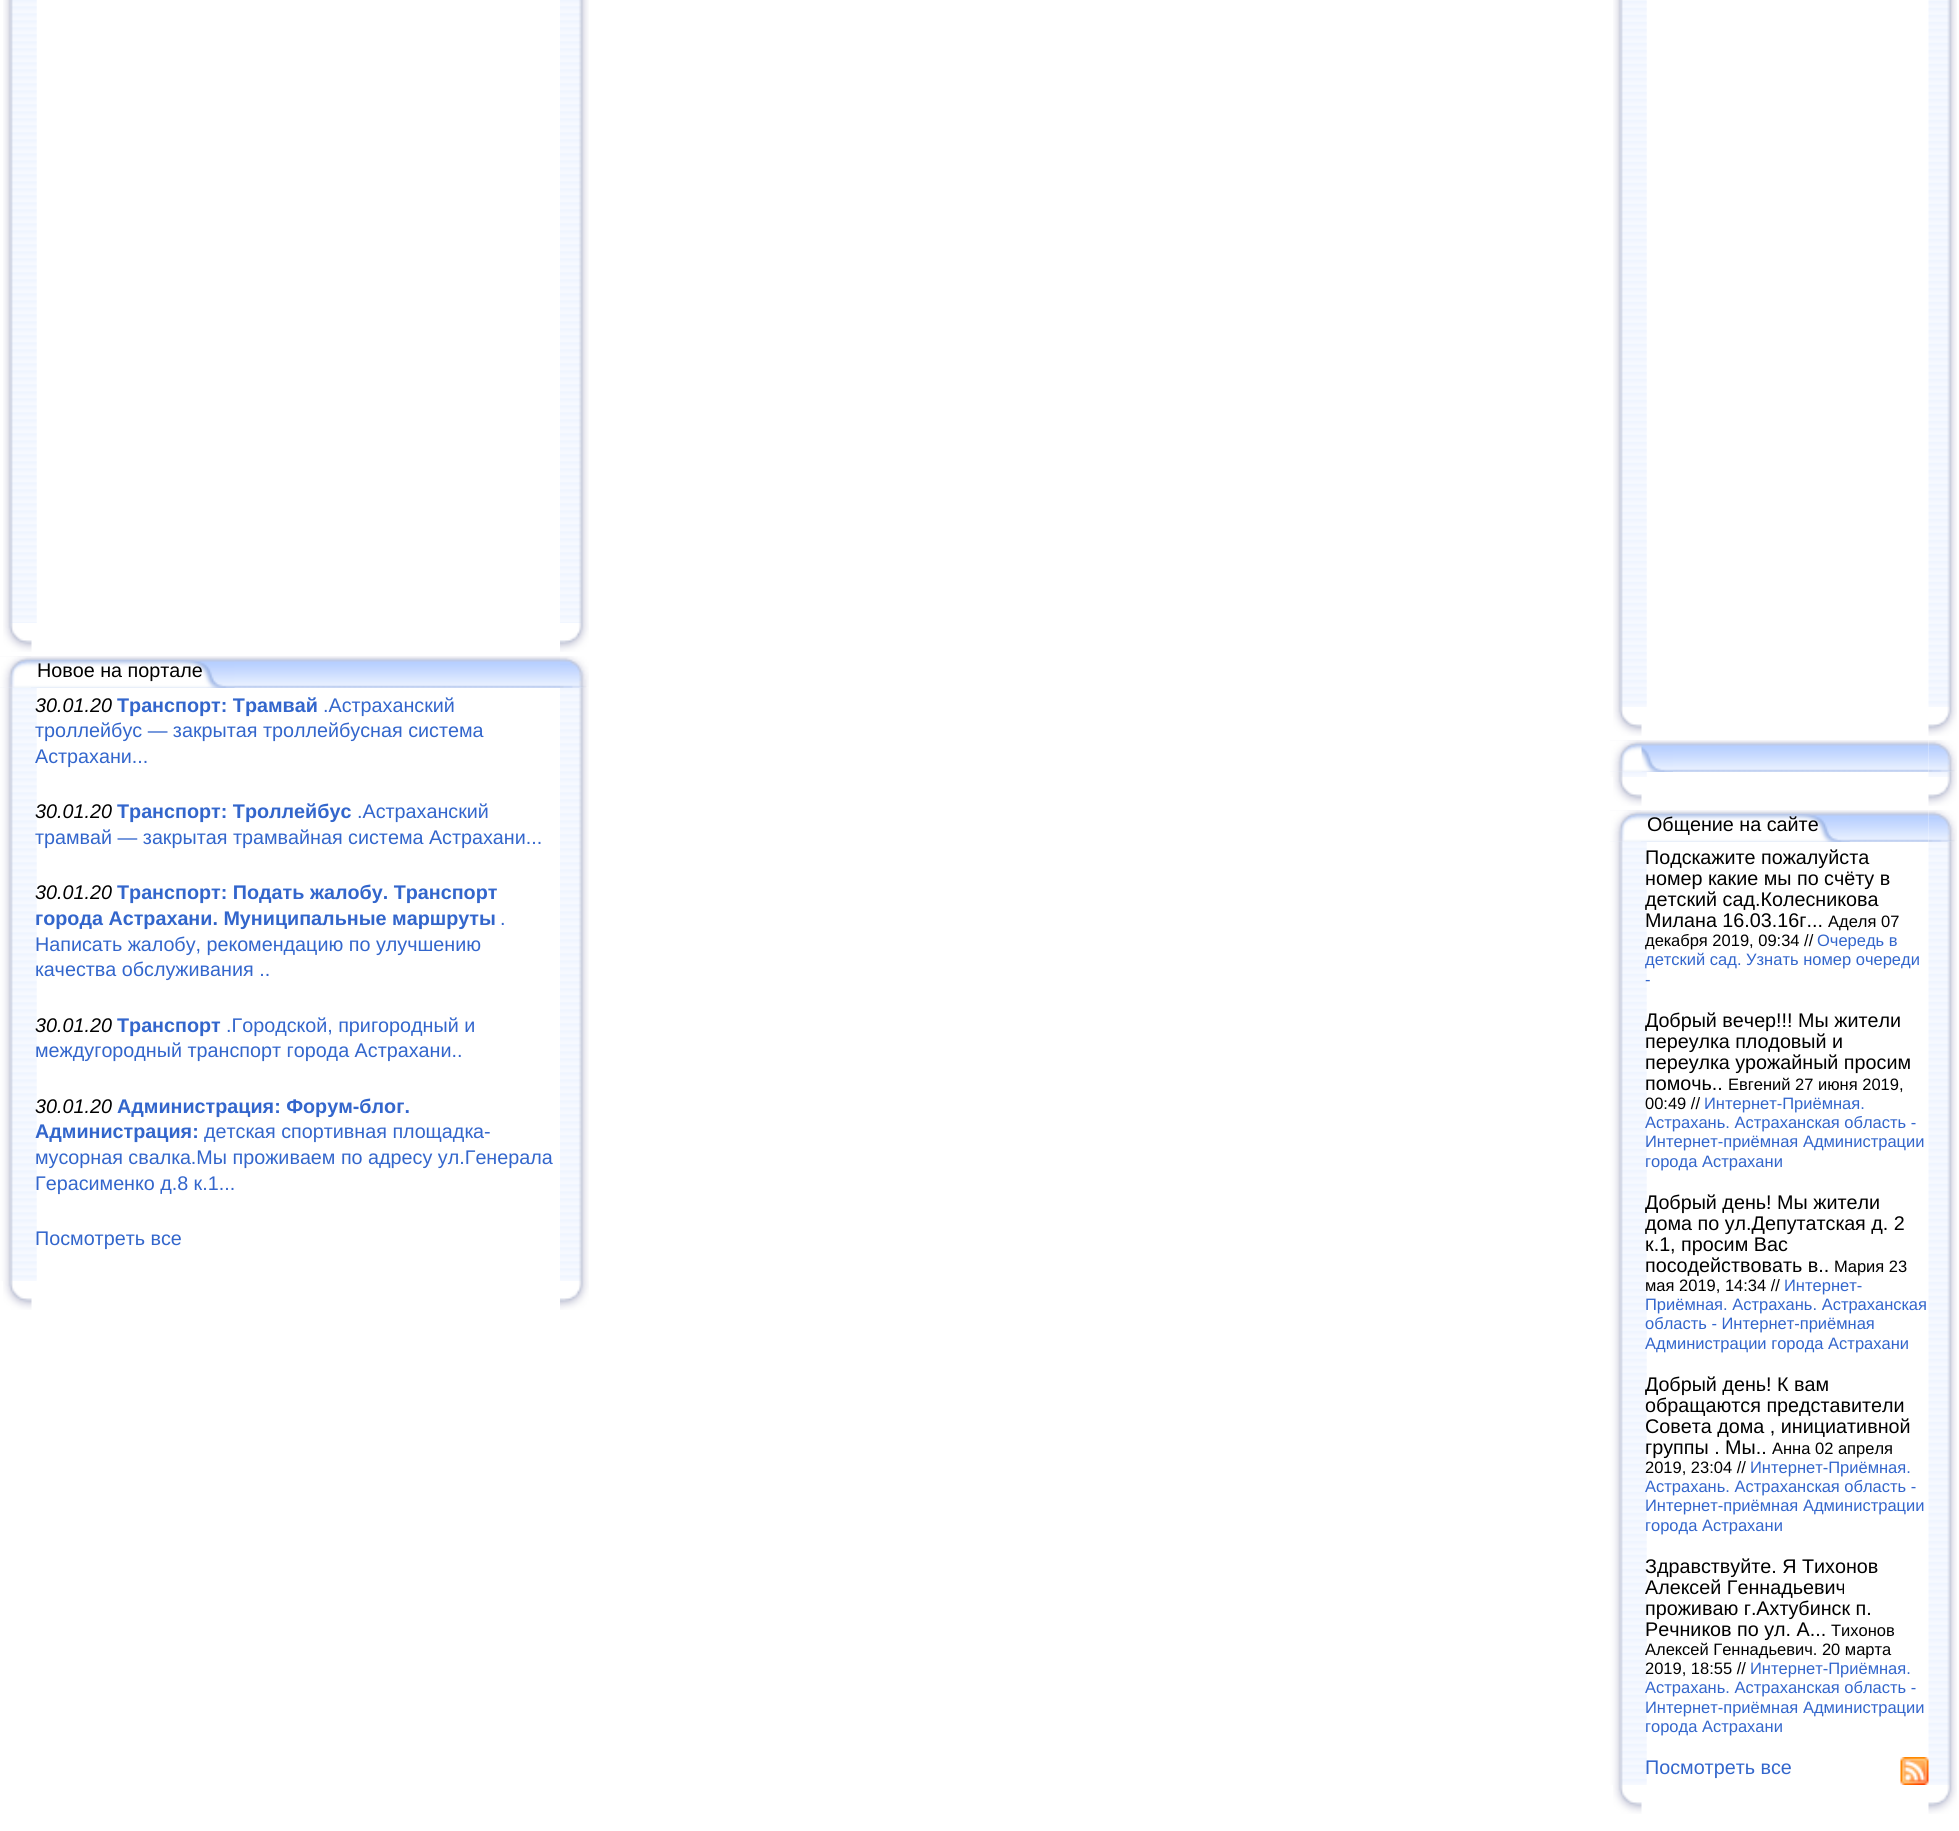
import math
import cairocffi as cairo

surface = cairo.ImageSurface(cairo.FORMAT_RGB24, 1959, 1831)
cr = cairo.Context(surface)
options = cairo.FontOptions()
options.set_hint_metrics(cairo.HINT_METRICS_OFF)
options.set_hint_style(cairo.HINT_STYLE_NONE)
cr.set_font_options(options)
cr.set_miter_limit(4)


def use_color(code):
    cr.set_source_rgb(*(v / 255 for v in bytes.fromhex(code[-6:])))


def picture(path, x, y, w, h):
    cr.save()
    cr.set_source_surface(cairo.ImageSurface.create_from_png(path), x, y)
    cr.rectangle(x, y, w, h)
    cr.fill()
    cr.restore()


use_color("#ffffff")
cr.paint()
picture("img1.png", 3, 0, 34, 623)
picture("img2.png", 560, 0, 29, 623)
picture("img3.png", 3, 623, 29, 29)
picture("img4.png", 560, 623, 29, 29)
picture("img5.png", 0, 656, 560, 32)
picture("img6.png", 0, 660, 235, 28)
picture("img9.png", 0, 687, 37, 594)
picture("img7.png", 0, 656, 31, 32)
cr.select_font_face("Liberation Sans")
cr.set_font_size(19.75)
use_color("#000000")
cr.move_to(37, 677)
cr.show_text("Новое на портале")
picture("img10.png", 560, 687, 29, 594)
picture("img8.png", 560, 656, 29, 32)
cr.select_font_face("Liberation Sans", cairo.FONT_SLANT_ITALIC)
cr.move_to(35, 712)
cr.show_text("30.01.20")
cr.select_font_face("Liberation Sans", cairo.FONT_SLANT_NORMAL, cairo.FONT_WEIGHT_BOLD)
use_color("#3366cc")
cr.move_to(117, 712)
cr.show_text("Транспорт: Трамвай")
cr.select_font_face("Liberation Sans")
cr.move_to(323, 712)
cr.show_text(".Астраханский")
cr.move_to(35, 737)
cr.show_text("троллейбус — закрытая троллейбусная система")
cr.move_to(35, 763)
cr.show_text("Астрахани...")
cr.select_font_face("Liberation Sans", cairo.FONT_SLANT_ITALIC)
use_color("#000000")
cr.move_to(35, 818)
cr.show_text("30.01.20")
cr.select_font_face("Liberation Sans", cairo.FONT_SLANT_NORMAL, cairo.FONT_WEIGHT_BOLD)
use_color("#3366cc")
cr.move_to(117, 818)
cr.show_text("Транспорт: Троллейбус")
cr.select_font_face("Liberation Sans")
cr.move_to(357, 818)
cr.show_text(".Астраханский")
cr.move_to(35, 844)
cr.show_text("трамвай — закрытая трамвайная система Астрахани...")
cr.select_font_face("Liberation Sans", cairo.FONT_SLANT_ITALIC)
use_color("#000000")
cr.move_to(35, 899)
cr.show_text("30.01.20")
cr.select_font_face("Liberation Sans", cairo.FONT_SLANT_NORMAL, cairo.FONT_WEIGHT_BOLD)
use_color("#3366cc")
cr.move_to(117, 899)
cr.show_text("Транспорт: Подать жалобу. Транспорт")
cr.move_to(35, 925)
cr.show_text("города Астрахани. Муниципальные маршруты")
cr.select_font_face("Liberation Sans")
cr.move_to(500, 925)
cr.show_text(".")
cr.move_to(35, 951)
cr.show_text("Написать жалобу, рекомендацию по улучшению")
cr.move_to(35, 976)
cr.show_text("качества обслуживания ..")
cr.select_font_face("Liberation Sans", cairo.FONT_SLANT_ITALIC)
use_color("#000000")
cr.move_to(35, 1032)
cr.show_text("30.01.20")
cr.select_font_face("Liberation Sans", cairo.FONT_SLANT_NORMAL, cairo.FONT_WEIGHT_BOLD)
use_color("#3366cc")
cr.move_to(117, 1032)
cr.show_text("Транспорт")
cr.select_font_face("Liberation Sans")
cr.move_to(226, 1032)
cr.show_text(".Городской, пригородный и")
cr.move_to(35, 1057)
cr.show_text("междугородный транспорт города Астрахани..")
cr.select_font_face("Liberation Sans", cairo.FONT_SLANT_ITALIC)
use_color("#000000")
cr.move_to(35, 1113)
cr.show_text("30.01.20")
cr.select_font_face("Liberation Sans", cairo.FONT_SLANT_NORMAL, cairo.FONT_WEIGHT_BOLD)
use_color("#3366cc")
cr.move_to(117, 1113)
cr.show_text("Администрация: Форум-блог.")
cr.move_to(35, 1138)
cr.show_text("Администрация:")
cr.select_font_face("Liberation Sans")
cr.move_to(204, 1138)
cr.show_text("детская спортивная площадка-")
cr.move_to(35, 1164)
cr.show_text("мусорная свалка.Мы проживаем по адресу ул.Генерала")
cr.move_to(35, 1190)
cr.show_text("Герасименко д.8 к.1...")
cr.move_to(35, 1245)
cr.show_text("Посмотреть все")
picture("img3.png", 3, 1281, 29, 29)
picture("img4.png", 560, 1281, 29, 29)
picture("img11.png", 1613, 0, 34, 707)
picture("img12.png", 1928, 0, 29, 707)
picture("img13.png", 1613, 707, 29, 29)
picture("img14.png", 1928, 707, 29, 29)
picture("img15.png", 1610, 740, 319, 32)
picture("img16.png", 1610, 744, 63, 28)
picture("img19.png", 1610, 771, 37, 6)
picture("img17.png", 1610, 740, 32, 32)
picture("img20.png", 1928, 771, 29, 6)
picture("img18.png", 1928, 740, 29, 32)
picture("img13.png", 1613, 777, 29, 29)
picture("img14.png", 1928, 777, 29, 29)
picture("img21.png", 1610, 810, 319, 32)
picture("img22.png", 1610, 814, 240, 28)
picture("img25.png", 1610, 841, 37, 944)
picture("img23.png", 1610, 810, 31, 32)
use_color("#000000")
cr.move_to(1647, 831)
cr.show_text("Общение на сайте")
picture("img27.png", 1928, 841, 29, 944)
picture("img24.png", 1928, 810, 29, 32)
cr.move_to(1645, 864)
cr.show_text("Подскажите пожалуйста")
cr.move_to(1645, 885)
cr.show_text("номер какие мы по счёту в")
cr.move_to(1645, 906)
cr.show_text("детский сад.Колесникова")
cr.move_to(1645, 927)
cr.show_text("Милана 16.03.16г...")
cr.set_font_size(16.5)
cr.move_to(1828, 927)
cr.show_text("Аделя 07")
cr.move_to(1645, 946)
cr.show_text("декабря 2019, 09:34 //")
use_color("#3366cc")
cr.move_to(1817, 946)
cr.show_text("Очередь в")
cr.move_to(1645, 965)
cr.show_text("детский сад. Узнать номер очереди")
cr.move_to(1645, 985)
cr.show_text("-")
cr.set_font_size(19.75)
use_color("#000000")
cr.move_to(1645, 1027)
cr.show_text("Добрый вечер!!! Мы жители")
cr.move_to(1645, 1048)
cr.show_text("переулка плодовый и")
cr.move_to(1645, 1069)
cr.show_text("переулка урожайный просим")
cr.move_to(1645, 1090)
cr.show_text("помочь..")
cr.set_font_size(16.5)
cr.move_to(1728, 1090)
cr.show_text("Евгений 27 июня 2019,")
cr.move_to(1645, 1109)
cr.show_text("00:49 //")
use_color("#3366cc")
cr.move_to(1704, 1109)
cr.show_text("Интернет-Приёмная.")
cr.move_to(1645, 1128)
cr.show_text("Астрахань. Астраханская область -")
cr.move_to(1645, 1147)
cr.show_text("Интернет-приёмная Администрации")
cr.move_to(1645, 1167)
cr.show_text("города Астрахани")
cr.set_font_size(19.75)
use_color("#000000")
cr.move_to(1645, 1209)
cr.show_text("Добрый день! Мы жители")
cr.move_to(1645, 1230)
cr.show_text("дома по ул.Депутатская д. 2")
cr.move_to(1645, 1251)
cr.show_text("к.1, просим Вас")
cr.move_to(1645, 1272)
cr.show_text("посодействовать в..")
cr.set_font_size(16.5)
cr.move_to(1834, 1272)
cr.show_text("Мария 23")
cr.move_to(1645, 1291)
cr.show_text("мая 2019, 14:34 //")
use_color("#3366cc")
cr.move_to(1784, 1291)
cr.show_text("Интернет-")
cr.move_to(1645, 1310)
cr.show_text("Приёмная. Астрахань. Астраханская")
cr.move_to(1645, 1329)
cr.show_text("область - Интернет-приёмная")
cr.move_to(1645, 1349)
cr.show_text("Администрации города Астрахани")
cr.set_font_size(19.75)
use_color("#000000")
cr.move_to(1645, 1391)
cr.show_text("Добрый день! К вам")
cr.move_to(1645, 1412)
cr.show_text("обращаются представители")
cr.move_to(1645, 1433)
cr.show_text("Совета дома , инициативной")
cr.move_to(1645, 1454)
cr.show_text("группы . Мы..")
cr.set_font_size(16.5)
cr.move_to(1772, 1454)
cr.show_text("Анна 02 апреля")
cr.move_to(1645, 1473)
cr.show_text("2019, 23:04 //")
use_color("#3366cc")
cr.move_to(1750, 1473)
cr.show_text("Интернет-Приёмная.")
cr.move_to(1645, 1492)
cr.show_text("Астрахань. Астраханская область -")
cr.move_to(1645, 1511)
cr.show_text("Интернет-приёмная Администрации")
cr.move_to(1645, 1531)
cr.show_text("города Астрахани")
cr.set_font_size(19.75)
use_color("#000000")
cr.move_to(1645, 1573)
cr.show_text("Здравствуйте. Я Тихонов")
cr.move_to(1645, 1594)
cr.show_text("Алексей Геннадьевич")
cr.move_to(1645, 1615)
cr.show_text("проживаю г.Ахтубинск п.")
cr.move_to(1645, 1636)
cr.show_text("Речников по ул. А...")
cr.set_font_size(16.5)
cr.move_to(1831, 1636)
cr.show_text("Тихонов")
cr.move_to(1645, 1655)
cr.show_text("Алексей Геннадьевич. 20 марта")
cr.move_to(1645, 1674)
cr.show_text("2019, 18:55 //")
use_color("#3366cc")
cr.move_to(1750, 1674)
cr.show_text("Интернет-Приёмная.")
cr.move_to(1645, 1693)
cr.show_text("Астрахань. Астраханская область -")
cr.move_to(1645, 1713)
cr.show_text("Интернет-приёмная Администрации")
cr.move_to(1645, 1732)
cr.show_text("города Астрахани")
cr.set_font_size(19.75)
cr.move_to(1645, 1774)
cr.show_text("Посмотреть все")
picture("img26.png", 1900, 1757, 29, 28)
picture("img13.png", 1613, 1785, 29, 29)
picture("img14.png", 1928, 1785, 29, 29)
surface.write_to_png("result.png")
